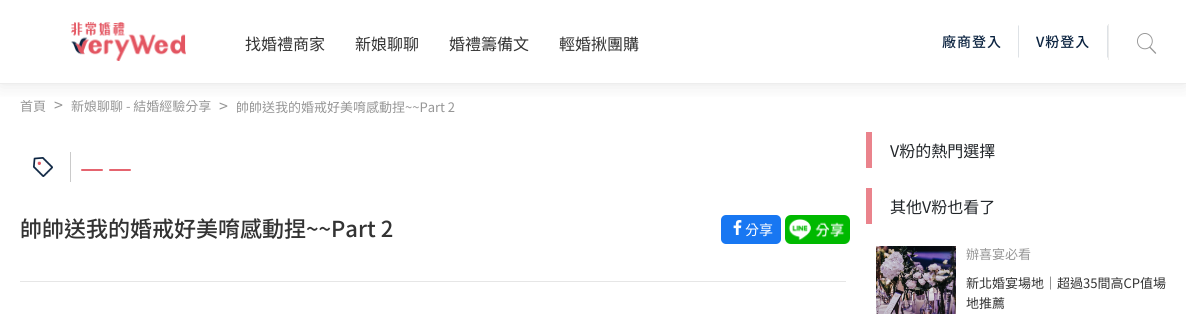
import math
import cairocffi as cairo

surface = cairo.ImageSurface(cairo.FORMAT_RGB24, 1186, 314)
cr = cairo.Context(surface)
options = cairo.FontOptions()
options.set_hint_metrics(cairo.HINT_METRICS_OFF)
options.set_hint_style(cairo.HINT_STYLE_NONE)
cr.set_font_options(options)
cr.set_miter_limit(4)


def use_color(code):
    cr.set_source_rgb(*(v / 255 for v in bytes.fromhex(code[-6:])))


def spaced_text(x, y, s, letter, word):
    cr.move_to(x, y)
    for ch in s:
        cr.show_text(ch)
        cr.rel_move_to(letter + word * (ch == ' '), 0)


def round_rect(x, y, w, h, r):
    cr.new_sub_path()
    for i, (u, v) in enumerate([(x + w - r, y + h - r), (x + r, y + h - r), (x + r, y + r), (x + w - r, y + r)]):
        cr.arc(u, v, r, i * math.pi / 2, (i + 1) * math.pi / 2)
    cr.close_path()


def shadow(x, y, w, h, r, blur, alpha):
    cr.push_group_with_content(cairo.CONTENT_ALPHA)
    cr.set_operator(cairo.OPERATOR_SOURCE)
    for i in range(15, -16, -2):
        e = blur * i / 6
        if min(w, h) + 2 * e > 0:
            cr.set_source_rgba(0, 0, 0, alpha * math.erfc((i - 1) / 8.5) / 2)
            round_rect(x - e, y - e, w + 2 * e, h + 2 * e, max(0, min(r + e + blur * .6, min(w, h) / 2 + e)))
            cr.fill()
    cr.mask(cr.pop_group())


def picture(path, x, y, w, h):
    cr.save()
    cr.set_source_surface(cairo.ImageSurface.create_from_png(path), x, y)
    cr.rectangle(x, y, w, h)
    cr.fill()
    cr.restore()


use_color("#ffffff")
cr.paint()
cr.save()
cr.rectangle(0, 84, 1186, 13)
cr.clip()
use_color("#7d7d7d")
shadow(0, 0, 1186, 84, 0, 10, 0.2)
cr.restore()
use_color("#ededed")
cr.rectangle(0, 83, 1186, 1)
cr.fill()
picture("img1.png", 71, 22, 115, 39)
cr.select_font_face("Noto Sans TC")
cr.set_font_size(16)
use_color("#333333")
cr.move_to(245, 50)
cr.show_text("找婚禮商家")
cr.move_to(355, 50)
cr.show_text("新娘聊聊")
cr.move_to(449, 50)
cr.show_text("婚禮籌備文")
cr.move_to(559, 50)
cr.show_text("輕婚揪團購")
use_color("#dee2e6")
cr.new_path()
cr.move_to(1019, 25)
cr.line_to(1019, 58)
cr.line_to(1018, 57)
cr.line_to(1018, 26)
cr.close_path()
cr.fill()
cr.select_font_face("Noto Sans TC Medium")
cr.set_font_size(14)
use_color("#0c2441")
spaced_text(942, 47, "廠商登入", 1, 0)
use_color("#dee2e6")
cr.new_path()
cr.move_to(1108, 25)
cr.line_to(1108, 58)
cr.line_to(1107, 57)
cr.line_to(1107, 26)
cr.close_path()
cr.fill()
use_color("#0c2441")
spaced_text(1036, 47, "V粉登入", 1, 0)
use_color("#ededed")
cr.rectangle(1108, 24, 1, 36)
cr.fill()
picture("img2.png", 1137, 33, 20, 21)
cr.select_font_face("Noto Sans TC")
cr.set_font_size(13)
use_color("#969696")
cr.move_to(20, 111)
cr.show_text("首頁")
cr.set_font_size(16)
cr.move_to(54, 111)
cr.show_text(">")
cr.set_font_size(13)
cr.move_to(71, 111)
cr.show_text("新娘聊聊 - 結婚經驗分享")
cr.set_font_size(16)
cr.move_to(219, 112)
cr.show_text(">")
cr.set_font_size(13)
cr.move_to(236, 112)
cr.show_text("帥帥送我的婚戒好美唷感動捏~~Part 2")
picture("img3.png", 33, 157, 20, 20)
use_color("#cacaca")
cr.rectangle(70, 152, 1, 30)
cr.fill()
use_color("#e5646f")
round_rect(81, 169, 22, 2, 1)
cr.fill()
round_rect(109, 169, 22, 2, 1)
cr.fill()
cr.select_font_face("Noto Sans TC Medium")
cr.set_font_size(22)
use_color("#333333")
cr.move_to(20, 237)
cr.show_text("帥帥送我的婚戒好美唷感動捏~~Part 2")
use_color("#1877f2")
round_rect(721, 215, 60, 29, 5)
cr.fill()
picture("img4.png", 733, 220, 9, 15)
cr.select_font_face("Noto Sans TC")
cr.set_font_size(14)
use_color("#ffffff")
cr.move_to(745, 235)
cr.show_text("分享")
picture("img5.png", 785, 215, 65, 29)
use_color("#e6e6e6")
cr.rectangle(20, 281, 826, 1)
cr.fill()
use_color("#ea838c")
cr.rectangle(866, 132, 6, 36)
cr.fill()
cr.set_font_size(16)
use_color("#212529")
cr.move_to(890, 157)
cr.show_text("V粉的熱門選擇")
use_color("#ea838c")
cr.rectangle(866, 188, 6, 36)
cr.fill()
use_color("#212529")
cr.move_to(890, 213)
cr.show_text("其他V粉也看了")
picture("img6.png", 876, 246, 80, 68)
cr.set_font_size(13)
use_color("#969696")
cr.move_to(966, 259)
cr.show_text("辦喜宴必看")
use_color("#333333")
cr.move_to(966, 288)
cr.show_text("新北婚宴場地｜超過35間高CP值場")
cr.move_to(966, 308)
cr.show_text("地推薦")
surface.write_to_png("result.png")
